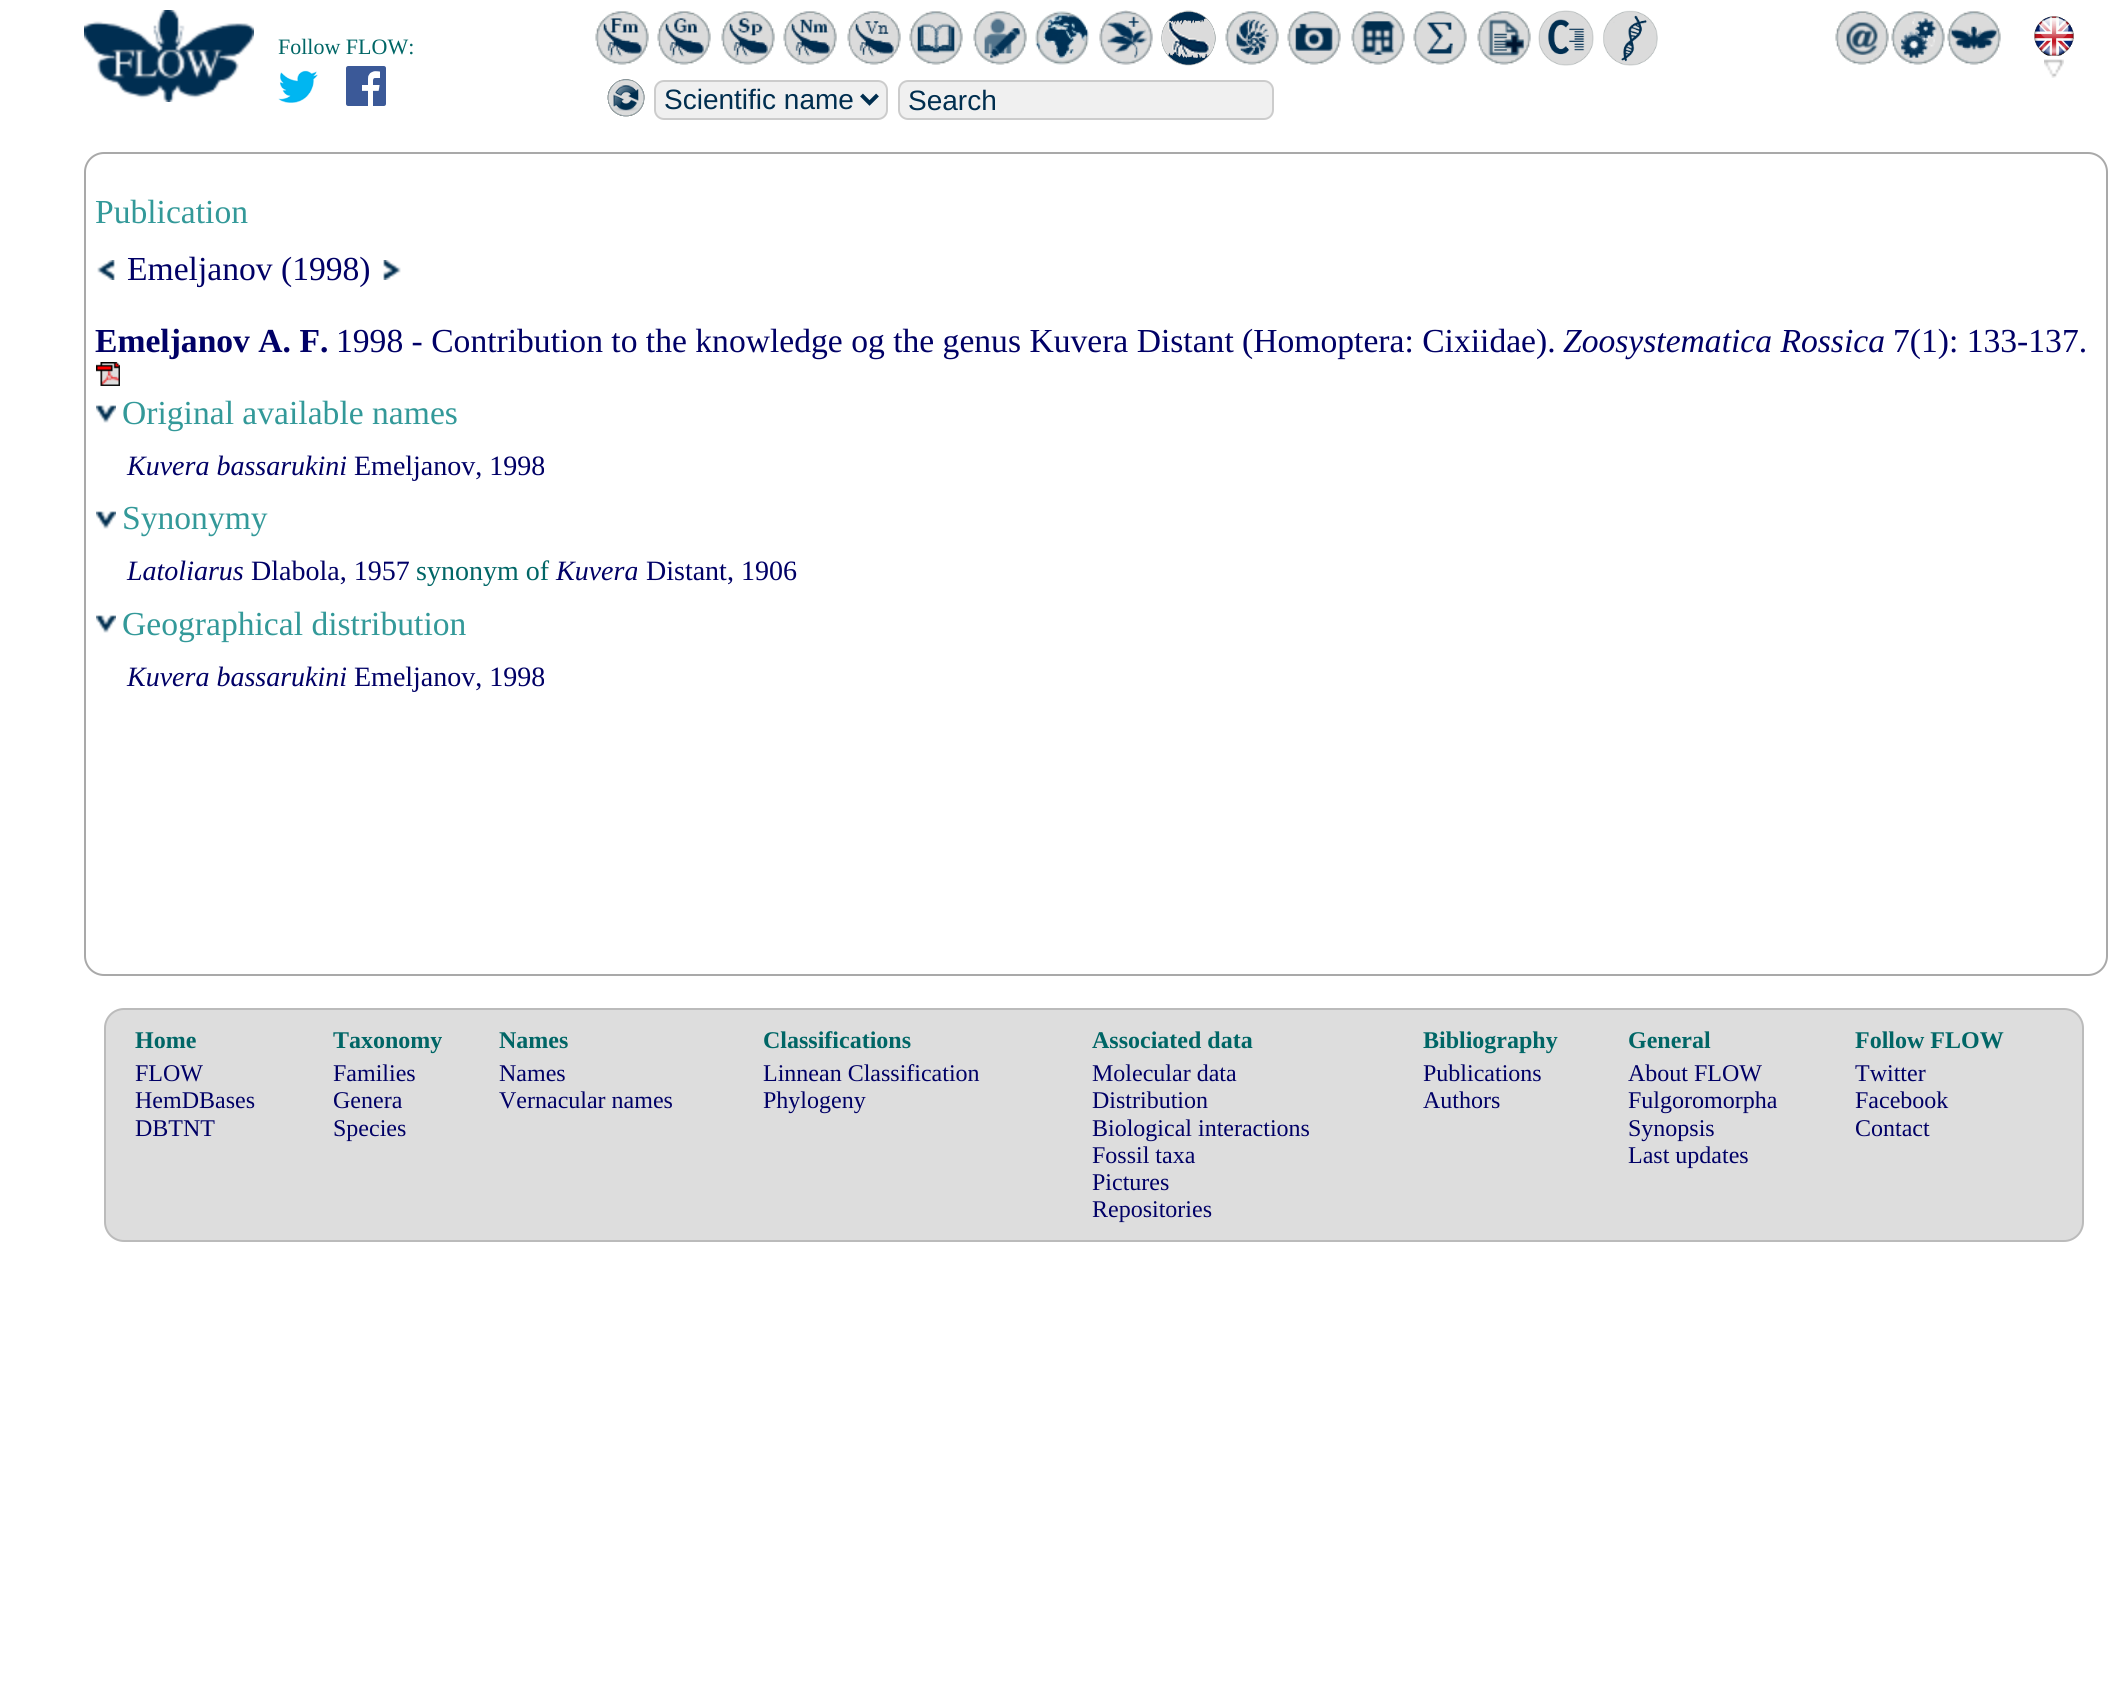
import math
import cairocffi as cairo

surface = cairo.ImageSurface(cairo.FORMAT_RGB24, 2125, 1704)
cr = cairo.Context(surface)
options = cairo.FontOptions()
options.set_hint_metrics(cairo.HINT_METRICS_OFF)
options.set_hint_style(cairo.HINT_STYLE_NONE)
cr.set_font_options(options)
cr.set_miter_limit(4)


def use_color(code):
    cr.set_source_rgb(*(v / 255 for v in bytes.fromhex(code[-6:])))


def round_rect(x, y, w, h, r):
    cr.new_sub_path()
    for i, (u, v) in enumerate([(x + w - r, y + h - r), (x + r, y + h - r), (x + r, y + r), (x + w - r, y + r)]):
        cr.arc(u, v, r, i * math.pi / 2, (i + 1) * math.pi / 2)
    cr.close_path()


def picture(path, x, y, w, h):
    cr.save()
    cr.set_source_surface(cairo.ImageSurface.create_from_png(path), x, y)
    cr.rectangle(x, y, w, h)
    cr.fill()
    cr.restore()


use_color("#ffffff")
cr.paint()
picture("img1.png", 84, 10, 170, 92)
cr.select_font_face("Liberation Serif")
cr.set_font_size(22)
use_color("#006666")
cr.move_to(278, 54)
cr.show_text("Follow FLOW:")
picture("img2.png", 278, 70, 40, 33)
picture("img3.png", 346, 66, 40, 40)
picture("img4.png", 595, 11, 54, 54)
picture("img5.png", 657, 11, 54, 54)
picture("img6.png", 721, 11, 54, 54)
picture("img7.png", 783, 11, 54, 54)
picture("img8.png", 847, 10, 54, 55)
picture("img9.png", 909, 11, 54, 54)
picture("img10.png", 973, 11, 54, 54)
picture("img11.png", 1035, 11, 54, 54)
picture("img12.png", 1099, 10, 54, 55)
picture("img13.png", 1161, 10, 55, 56)
picture("img14.png", 1225, 11, 54, 54)
picture("img15.png", 1287, 11, 54, 54)
picture("img16.png", 1351, 11, 54, 54)
picture("img17.png", 1413, 11, 54, 54)
picture("img18.png", 1477, 11, 54, 54)
picture("img19.png", 1538, 10, 56, 56)
picture("img20.png", 1603, 10, 55, 56)
picture("img21.png", 1835, 11, 54, 54)
picture("img22.png", 1891, 11, 54, 54)
picture("img23.png", 1947, 11, 54, 54)
picture("img24.png", 2034, 16, 40, 40)
picture("img25.png", 2044, 59, 20, 19)
picture("img26.png", 607, 79, 38, 38)
use_color("#f0f0f0")
round_rect(655, 81, 232, 38, 9)
cr.fill_preserve()
use_color("#cccccc")
cr.stroke()
cr.new_path()
cr.move_to(861.5, 95)
cr.line_to(869.5, 103)
cr.line_to(877.5, 95)
use_color("#002e4f")
cr.set_line_width(4)
cr.stroke()
cr.select_font_face("Liberation Sans")
cr.set_font_size(28)
cr.move_to(664, 109)
cr.show_text("Scientific name")
use_color("#f0f0f0")
round_rect(899, 81, 374, 38, 9)
cr.fill_preserve()
use_color("#cccccc")
cr.set_line_width(2)
cr.stroke()
use_color("#002e4f")
cr.move_to(908, 110)
cr.show_text("Search")
round_rect(85, 153, 2022, 822, 19)
use_color("#a9a9a9")
cr.stroke()
cr.select_font_face("Liberation Serif")
cr.set_font_size(33.6)
use_color("#339999")
cr.move_to(95, 223)
cr.show_text("Publication")
picture("img27.png", 97, 260, 18, 20)
use_color("#000066")
cr.move_to(127, 280)
cr.show_text("Emeljanov (1998)")
picture("img28.png", 383, 260, 18, 20)
cr.select_font_face("Liberation Serif", cairo.FONT_SLANT_NORMAL, cairo.FONT_WEIGHT_BOLD)
cr.move_to(95, 352)
cr.show_text("Emeljanov A. F.")
cr.select_font_face("Liberation Serif")
cr.move_to(336, 352)
cr.show_text("1998 - Contribution to the knowledge og the genus Kuvera Distant (Homoptera: Cixiidae).")
cr.select_font_face("Liberation Serif", cairo.FONT_SLANT_ITALIC)
cr.move_to(1563, 352)
cr.show_text("Zoosystematica Rossica")
cr.select_font_face("Liberation Serif")
cr.move_to(1893, 352)
cr.show_text("7(1): 133-137.")
picture("img29.png", 96, 362, 24, 24)
picture("img30.png", 96, 405, 20, 18)
use_color("#339999")
cr.move_to(122, 424)
cr.show_text("Original available names")
cr.select_font_face("Liberation Serif", cairo.FONT_SLANT_ITALIC)
cr.set_font_size(28)
use_color("#000066")
cr.move_to(127, 475)
cr.show_text("Kuvera bassarukini")
cr.select_font_face("Liberation Serif")
cr.move_to(354, 475)
cr.show_text("Emeljanov, 1998")
picture("img30.png", 96, 511, 20, 18)
cr.set_font_size(33.6)
use_color("#339999")
cr.move_to(122, 529)
cr.show_text("Synonymy")
cr.select_font_face("Liberation Serif", cairo.FONT_SLANT_ITALIC)
cr.set_font_size(28)
use_color("#000066")
cr.move_to(127, 580)
cr.show_text("Latoliarus")
cr.select_font_face("Liberation Serif")
cr.move_to(251, 580)
cr.show_text("Dlabola, 1957")
use_color("#006666")
cr.move_to(416, 580)
cr.show_text("synonym of")
cr.select_font_face("Liberation Serif", cairo.FONT_SLANT_ITALIC)
use_color("#000066")
cr.move_to(556, 580)
cr.show_text("Kuvera")
cr.select_font_face("Liberation Serif")
cr.move_to(646, 580)
cr.show_text("Distant, 1906")
picture("img30.png", 96, 615, 20, 18)
cr.set_font_size(33.6)
use_color("#339999")
cr.move_to(122, 635)
cr.show_text("Geographical distribution")
cr.select_font_face("Liberation Serif", cairo.FONT_SLANT_ITALIC)
cr.set_font_size(28)
use_color("#000066")
cr.move_to(127, 686)
cr.show_text("Kuvera bassarukini")
cr.select_font_face("Liberation Serif")
cr.move_to(354, 686)
cr.show_text("Emeljanov, 1998")
use_color("#dddddd")
round_rect(105, 1009, 1978, 232, 19)
cr.fill_preserve()
use_color("#bbbbbb")
cr.stroke()
cr.select_font_face("Liberation Serif", cairo.FONT_SLANT_NORMAL, cairo.FONT_WEIGHT_BOLD)
cr.set_font_size(24)
use_color("#006666")
cr.move_to(135, 1048)
cr.show_text("Home")
cr.select_font_face("Liberation Serif")
use_color("#000066")
cr.move_to(135, 1081)
cr.show_text("FLOW")
cr.move_to(135, 1108)
cr.show_text("HemDBases")
cr.move_to(135, 1136)
cr.show_text("DBTNT")
cr.select_font_face("Liberation Serif", cairo.FONT_SLANT_NORMAL, cairo.FONT_WEIGHT_BOLD)
use_color("#006666")
cr.move_to(333, 1048)
cr.show_text("Taxonomy")
cr.select_font_face("Liberation Serif")
use_color("#000066")
cr.move_to(333, 1081)
cr.show_text("Families")
cr.move_to(333, 1108)
cr.show_text("Genera")
cr.move_to(333, 1136)
cr.show_text("Species")
cr.select_font_face("Liberation Serif", cairo.FONT_SLANT_NORMAL, cairo.FONT_WEIGHT_BOLD)
use_color("#006666")
cr.move_to(499, 1048)
cr.show_text("Names")
cr.select_font_face("Liberation Serif")
use_color("#000066")
cr.move_to(499, 1081)
cr.show_text("Names")
cr.move_to(499, 1108)
cr.show_text("Vernacular names")
cr.select_font_face("Liberation Serif", cairo.FONT_SLANT_NORMAL, cairo.FONT_WEIGHT_BOLD)
use_color("#006666")
cr.move_to(763, 1048)
cr.show_text("Classifications")
cr.select_font_face("Liberation Serif")
use_color("#000066")
cr.move_to(763, 1081)
cr.show_text("Linnean Classification")
cr.move_to(763, 1108)
cr.show_text("Phylogeny")
cr.select_font_face("Liberation Serif", cairo.FONT_SLANT_NORMAL, cairo.FONT_WEIGHT_BOLD)
use_color("#006666")
cr.move_to(1092, 1048)
cr.show_text("Associated data")
cr.select_font_face("Liberation Serif")
use_color("#000066")
cr.move_to(1092, 1081)
cr.show_text("Molecular data")
cr.move_to(1092, 1108)
cr.show_text("Distribution")
cr.move_to(1092, 1136)
cr.show_text("Biological interactions")
cr.move_to(1092, 1163)
cr.show_text("Fossil taxa")
cr.move_to(1092, 1190)
cr.show_text("Pictures")
cr.move_to(1092, 1217)
cr.show_text("Repositories")
cr.select_font_face("Liberation Serif", cairo.FONT_SLANT_NORMAL, cairo.FONT_WEIGHT_BOLD)
use_color("#006666")
cr.move_to(1423, 1048)
cr.show_text("Bibliography")
cr.select_font_face("Liberation Serif")
use_color("#000066")
cr.move_to(1423, 1081)
cr.show_text("Publications")
cr.move_to(1423, 1108)
cr.show_text("Authors")
cr.select_font_face("Liberation Serif", cairo.FONT_SLANT_NORMAL, cairo.FONT_WEIGHT_BOLD)
use_color("#006666")
cr.move_to(1628, 1048)
cr.show_text("General")
cr.select_font_face("Liberation Serif")
use_color("#000066")
cr.move_to(1628, 1081)
cr.show_text("About FLOW")
cr.move_to(1628, 1108)
cr.show_text("Fulgoromorpha")
cr.move_to(1628, 1136)
cr.show_text("Synopsis")
cr.move_to(1628, 1163)
cr.show_text("Last updates")
cr.select_font_face("Liberation Serif", cairo.FONT_SLANT_NORMAL, cairo.FONT_WEIGHT_BOLD)
use_color("#006666")
cr.move_to(1855, 1048)
cr.show_text("Follow FLOW")
cr.select_font_face("Liberation Serif")
use_color("#000066")
cr.move_to(1855, 1081)
cr.show_text("Twitter")
cr.move_to(1855, 1108)
cr.show_text("Facebook")
cr.move_to(1855, 1136)
cr.show_text("Contact")
surface.write_to_png("result.png")
